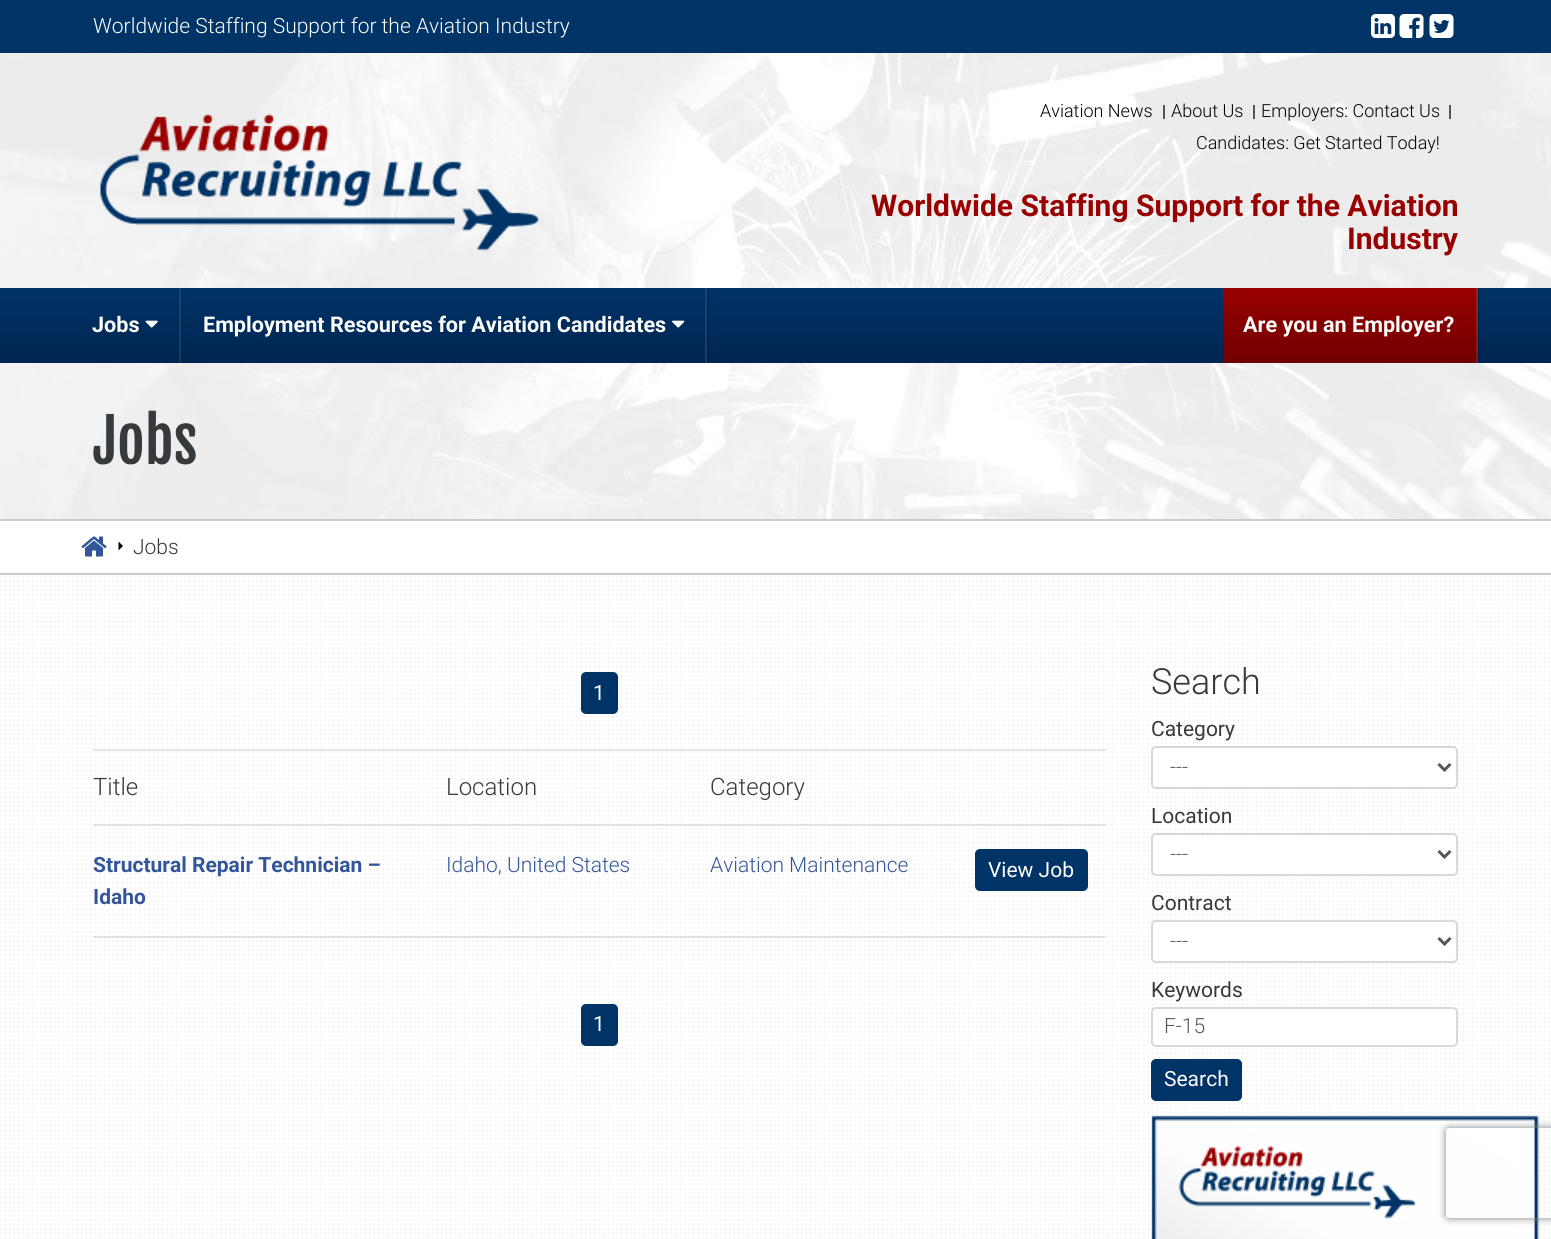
import math
import cairocffi as cairo

surface = cairo.ImageSurface(cairo.FORMAT_RGB24, 1551, 1239)
cr = cairo.Context(surface)
options = cairo.FontOptions()
options.set_hint_metrics(cairo.HINT_METRICS_OFF)
options.set_hint_style(cairo.HINT_STYLE_NONE)
cr.set_font_options(options)
cr.set_miter_limit(4)


def use_color(code):
    cr.set_source_rgb(*(v / 255 for v in bytes.fromhex(code[-6:])))


def round_rect(x, y, w, h, r):
    cr.new_sub_path()
    for i, (u, v) in enumerate([(x + w - r, y + h - r), (x + r, y + h - r), (x + r, y + r), (x + w - r, y + r)]):
        cr.arc(u, v, r, i * math.pi / 2, (i + 1) * math.pi / 2)
    cr.close_path()


def shadow(x, y, w, h, r, blur, alpha):
    cr.push_group_with_content(cairo.CONTENT_ALPHA)
    cr.set_operator(cairo.OPERATOR_SOURCE)
    for i in range(15, -16, -2):
        e = blur * i / 6
        if min(w, h) + 2 * e > 0:
            cr.set_source_rgba(0, 0, 0, alpha * math.erfc((i - 1) / 8.5) / 2)
            round_rect(x - e, y - e, w + 2 * e, h + 2 * e, max(0, min(r + e + blur * .6, min(w, h) / 2 + e)))
            cr.fill()
    cr.mask(cr.pop_group())


def picture(path, x, y, w, h):
    cr.save()
    cr.set_source_surface(cairo.ImageSurface.create_from_png(path), x, y)
    cr.rectangle(x, y, w, h)
    cr.fill()
    cr.restore()


use_color("#ffffff")
cr.paint()
picture("img1.png", 0, 575, 1550, 664)
picture("img2.png", 0, 53, 1551, 466)
use_color("#003366")
cr.rectangle(0, 0, 1551, 53)
cr.fill()
cr.select_font_face("Roboto Light")
cr.set_font_size(21)
use_color("#ffffff")
cr.move_to(93, 33)
cr.show_text("Worldwide Staffing Support for the Aviation Industry")
picture("img3.png", 1371, 14, 24, 24)
picture("img4.png", 1399, 14, 25, 24)
picture("img5.png", 1429, 14, 25, 24)
picture("img6.png", 100, 113, 439, 138)
cr.set_font_size(18)
use_color("#000000")
cr.move_to(1040, 117)
cr.show_text("Aviation News")
use_color("#555555")
cr.rectangle(1163, 105, 2, 14)
cr.fill()
use_color("#000000")
cr.move_to(1171, 117)
cr.show_text("About Us")
use_color("#555555")
cr.rectangle(1253, 105, 2, 14)
cr.fill()
use_color("#000000")
cr.move_to(1261, 117)
cr.show_text("Employers: Contact Us")
use_color("#555555")
cr.rectangle(1449, 105, 2, 14)
cr.fill()
use_color("#000000")
cr.move_to(1196, 149)
cr.show_text("Candidates: Get Started Today!")
cr.select_font_face("Roboto", cairo.FONT_SLANT_NORMAL, cairo.FONT_WEIGHT_BOLD)
cr.set_font_size(30)
use_color("#990000")
cr.move_to(871, 216)
cr.show_text("Worldwide Staffing Support for the Aviation")
cr.move_to(1347, 249)
cr.show_text("Industry")
gradient = cairo.LinearGradient(776, 288, 776, 363)
gradient.add_color_stop_rgba(0, 0, 0.2, 0.4, 1)
gradient.add_color_stop_rgba(1, 0, 0.145, 0.322, 1)
cr.set_source(gradient)
cr.rectangle(0, 288, 1551, 75)
cr.fill()
cr.set_source_rgba(0, 0, 0, 0.1)
cr.rectangle(180, 288, 2, 75)
cr.fill()
cr.set_source_rgba(1, 1, 1, 0.1)
cr.rectangle(179, 288, 2, 75)
cr.fill()
cr.set_font_size(21.6)
use_color("#ffffff")
cr.move_to(92, 332)
cr.show_text("Jobs")
picture("img7.png", 145, 320, 13, 8)
cr.set_source_rgba(0, 0, 0, 0.1)
cr.rectangle(707, 288, 2, 75)
cr.fill()
cr.set_source_rgba(1, 1, 1, 0.1)
cr.rectangle(705, 288, 2, 75)
cr.fill()
use_color("#ffffff")
cr.move_to(203, 332)
cr.show_text("Employment Resources for Aviation Candidates")
picture("img8.png", 672, 320, 13, 8)
cr.set_source_rgba(0, 0, 0, 0.1)
cr.rectangle(1478, 288, 2, 75)
cr.fill()
gradient = cairo.LinearGradient(1349, 288, 1349, 363)
gradient.add_color_stop_rgba(0, 0.6, 0, 0, 1)
gradient.add_color_stop_rgba(1, 0.443, 0, 0, 1)
cr.set_source(gradient)
cr.rectangle(1223, 288, 255, 75)
cr.fill()
cr.set_source_rgba(1, 1, 1, 0.1)
cr.rectangle(1476, 288, 2, 75)
cr.fill()
use_color("#ffffff")
cr.move_to(1243, 332)
cr.show_text("Are you an Employer?")
cr.select_font_face("Fjalla One")
cr.set_font_size(60)
use_color("#373a3c")
cr.move_to(93, 464)
cr.show_text("Jobs")
use_color("#cccccc")
cr.rectangle(0, 519, 1551, 2)
cr.fill()
cr.rectangle(0, 573, 1551, 2)
cr.fill()
picture("img9.png", 81, 536, 26, 21)
use_color("#000000")
cr.new_path()
cr.move_to(118.5, 550.5)
cr.line_to(118.5, 541.5)
cr.line_to(123, 546)
cr.close_path()
cr.fill()
cr.select_font_face("Roboto Light")
cr.set_font_size(21)
use_color("#373a3c")
cr.move_to(133, 554)
cr.show_text("Jobs")
use_color("#003366")
round_rect(581, 672, 37, 42, 5)
cr.fill()
cr.select_font_face("Roboto")
use_color("#ffffff")
cr.move_to(593, 700)
cr.show_text("1")
use_color("#e6e6e6")
cr.rectangle(93, 749, 1013, 2)
cr.fill()
cr.select_font_face("Roboto Light")
cr.set_font_size(24)
use_color("#373a3c")
cr.move_to(93, 795)
cr.show_text("Title")
cr.move_to(446, 795)
cr.show_text("Location")
cr.move_to(710, 795)
cr.show_text("Category")
cr.set_source_rgba(0, 0, 0, 0.1)
cr.rectangle(93, 824, 1013, 2)
cr.fill()
cr.select_font_face("Roboto", cairo.FONT_SLANT_NORMAL, cairo.FONT_WEIGHT_BOLD)
cr.set_font_size(21)
use_color("#335599")
cr.move_to(93, 872)
cr.show_text("Structural Repair Technician –")
cr.move_to(93, 904)
cr.show_text("Idaho")
cr.select_font_face("Roboto Light")
cr.move_to(446, 872)
cr.show_text("Idaho, United States")
cr.move_to(710, 872)
cr.show_text("Aviation Maintenance")
use_color("#003366")
round_rect(975, 849, 113, 42, 5)
cr.fill()
cr.select_font_face("Roboto")
use_color("#ffffff")
cr.move_to(988, 877)
cr.show_text("View Job")
cr.set_source_rgba(0, 0, 0, 0.1)
cr.rectangle(93, 936, 1013, 2)
cr.fill()
use_color("#003366")
round_rect(581, 1004, 37, 42, 5)
cr.fill()
use_color("#ffffff")
cr.move_to(593, 1031)
cr.show_text("1")
cr.select_font_face("Roboto Light")
cr.set_font_size(36)
use_color("#373a3c")
cr.move_to(1151, 694)
cr.show_text("Search")
cr.select_font_face("Roboto")
cr.set_font_size(21)
cr.move_to(1151, 736)
cr.show_text("Category")
use_color("#ffffff")
round_rect(1152, 747, 305, 41, 3)
cr.fill()
round_rect(1152, 747, 305, 41, 4)
cr.set_source_rgba(0, 0, 0, 0.15)
cr.stroke()
cr.new_path()
cr.move_to(1438.5, 764)
cr.line_to(1444.5, 770)
cr.line_to(1450.5, 764)
use_color("#55595c")
cr.set_line_width(3)
cr.stroke()
cr.select_font_face("Roboto Light")
cr.move_to(1170, 774)
cr.show_text("---")
cr.select_font_face("Roboto")
use_color("#373a3c")
cr.move_to(1151, 823)
cr.show_text("Location")
use_color("#ffffff")
round_rect(1152, 834, 305, 41, 3)
cr.fill()
round_rect(1152, 834, 305, 41, 4)
cr.set_source_rgba(0, 0, 0, 0.15)
cr.set_line_width(2)
cr.stroke()
cr.new_path()
cr.move_to(1438.5, 851)
cr.line_to(1444.5, 857)
cr.line_to(1450.5, 851)
use_color("#55595c")
cr.set_line_width(3)
cr.stroke()
cr.select_font_face("Roboto Light")
cr.move_to(1170, 861)
cr.show_text("---")
cr.select_font_face("Roboto")
use_color("#373a3c")
cr.move_to(1151, 910)
cr.show_text("Contract")
use_color("#ffffff")
round_rect(1152, 921, 305, 41, 3)
cr.fill()
round_rect(1152, 921, 305, 41, 4)
cr.set_source_rgba(0, 0, 0, 0.15)
cr.set_line_width(2)
cr.stroke()
cr.new_path()
cr.move_to(1438.5, 938)
cr.line_to(1444.5, 944)
cr.line_to(1450.5, 938)
use_color("#55595c")
cr.set_line_width(3)
cr.stroke()
cr.select_font_face("Roboto Light")
cr.move_to(1170, 948)
cr.show_text("---")
cr.select_font_face("Roboto")
use_color("#373a3c")
cr.move_to(1151, 997)
cr.show_text("Keywords")
use_color("#ffffff")
round_rect(1152, 1008, 305, 38, 3)
cr.fill()
round_rect(1152, 1008, 305, 38, 4)
cr.set_source_rgba(0, 0, 0, 0.15)
cr.set_line_width(2)
cr.stroke()
cr.select_font_face("Roboto Light")
use_color("#55595c")
cr.move_to(1164, 1033)
cr.show_text("F-15")
use_color("#003366")
round_rect(1151, 1059, 91, 42, 5)
cr.fill()
cr.select_font_face("Roboto")
use_color("#ffffff")
cr.move_to(1164, 1086)
cr.show_text("Search")
picture("img10.png", 1151, 1115, 389, 124)
cr.save()
cr.set_fill_rule(cairo.FILL_RULE_EVEN_ODD)
cr.new_path()
cr.move_to(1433, 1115)
cr.line_to(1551, 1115)
cr.line_to(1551, 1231)
cr.line_to(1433, 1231)
cr.close_path()
cr.move_to(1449, 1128)
cr.line_to(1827, 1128)
cr.curve_to(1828.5, 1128, 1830, 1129.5, 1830, 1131)
cr.line_to(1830, 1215)
cr.curve_to(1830, 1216.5, 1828.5, 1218, 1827, 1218)
cr.line_to(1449, 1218)
cr.curve_to(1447.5, 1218, 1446, 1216.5, 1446, 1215)
cr.line_to(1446, 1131)
cr.curve_to(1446, 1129.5, 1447.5, 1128, 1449, 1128)
cr.close_path()
cr.clip()
use_color("#808080")
shadow(1446, 1128, 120, 90, 3, 4, 1)
cr.restore()
surface.write_to_png("result.png")
